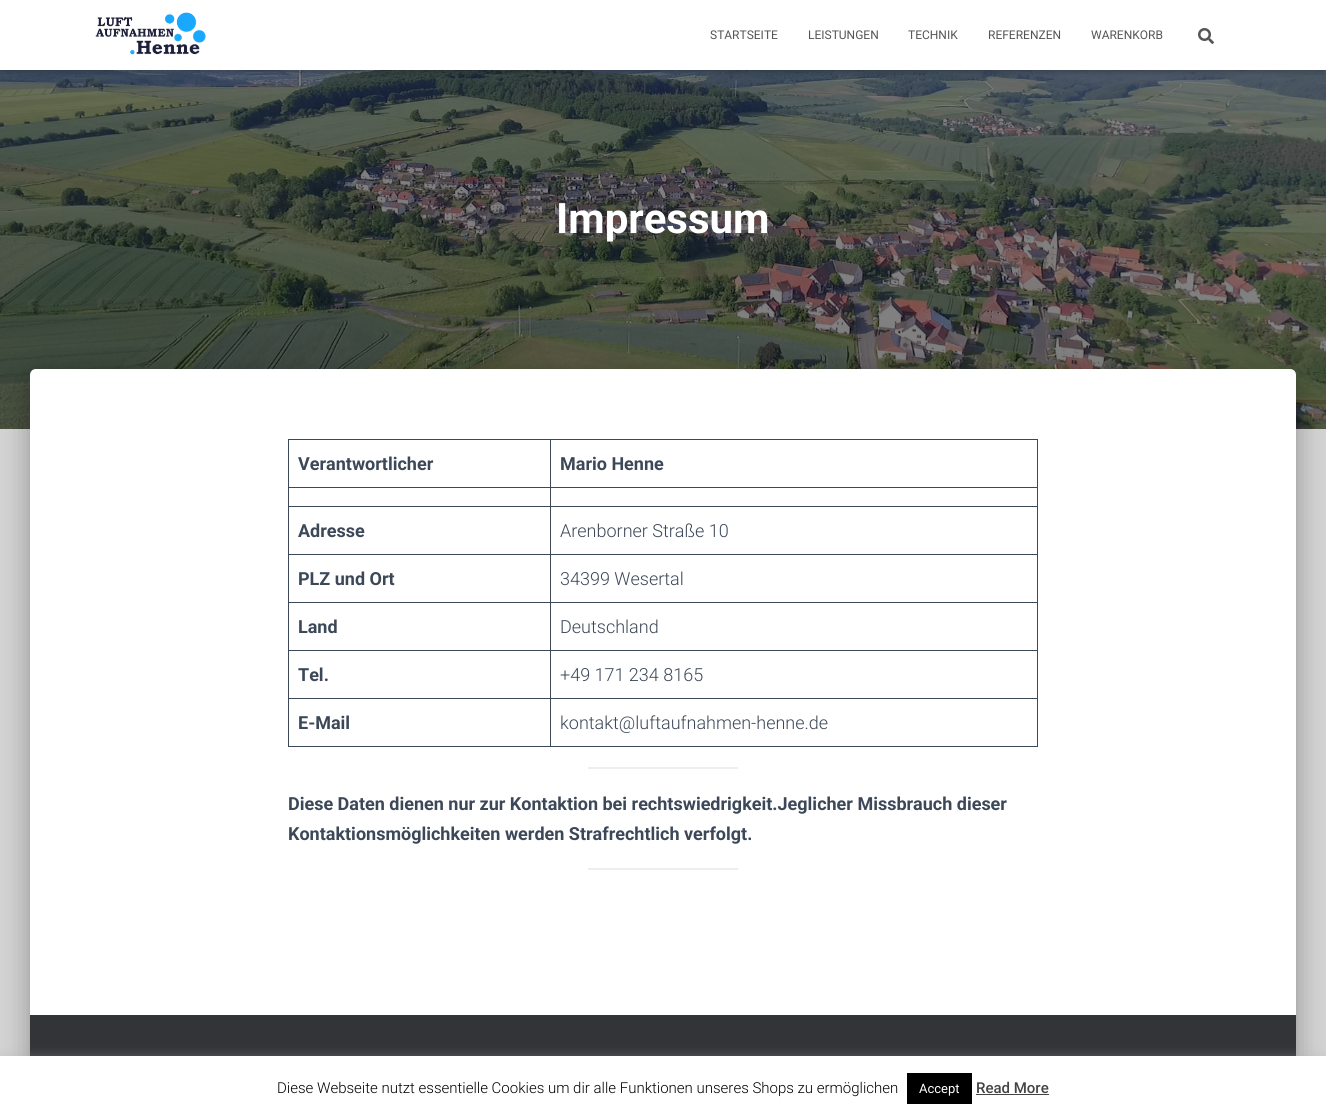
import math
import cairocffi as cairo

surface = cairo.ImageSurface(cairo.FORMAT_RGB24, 1326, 1116)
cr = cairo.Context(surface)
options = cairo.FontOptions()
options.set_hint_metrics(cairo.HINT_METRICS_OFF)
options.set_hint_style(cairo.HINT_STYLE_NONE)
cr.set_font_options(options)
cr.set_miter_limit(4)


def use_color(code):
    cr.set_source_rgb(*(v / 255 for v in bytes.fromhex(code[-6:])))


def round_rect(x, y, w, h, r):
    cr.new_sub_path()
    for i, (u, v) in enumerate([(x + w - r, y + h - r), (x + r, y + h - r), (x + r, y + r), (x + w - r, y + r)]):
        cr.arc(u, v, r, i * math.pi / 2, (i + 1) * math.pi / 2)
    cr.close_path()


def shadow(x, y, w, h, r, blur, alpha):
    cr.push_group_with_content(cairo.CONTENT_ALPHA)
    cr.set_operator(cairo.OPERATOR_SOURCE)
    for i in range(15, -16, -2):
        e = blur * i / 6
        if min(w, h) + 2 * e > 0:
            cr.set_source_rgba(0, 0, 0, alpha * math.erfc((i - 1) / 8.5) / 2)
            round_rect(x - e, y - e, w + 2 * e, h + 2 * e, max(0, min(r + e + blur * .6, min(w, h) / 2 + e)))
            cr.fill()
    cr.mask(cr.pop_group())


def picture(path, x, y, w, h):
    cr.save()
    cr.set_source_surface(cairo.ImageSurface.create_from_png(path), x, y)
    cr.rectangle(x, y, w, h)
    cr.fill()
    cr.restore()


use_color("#d3d3d3")
cr.paint()
picture("img3.png", 0, 70, 1326, 359)
use_color("#000000")
shadow(2, 6, 1322, 66, 0, 2.5, 0.1)
shadow(0, 1, 1326, 70, 0, 5, 0.12)
shadow(6, 7, 1314, 58, 0, 5, 0.42)
use_color("#ffffff")
cr.rectangle(0, 0, 1326, 70)
cr.fill()
picture("img1.png", 95, 12, 111, 43)
cr.select_font_face("Roboto")
cr.set_font_size(12)
use_color("#555555")
cr.move_to(710, 39)
cr.show_text("STARTSEITE")
cr.move_to(808, 39)
cr.show_text("LEISTUNGEN")
cr.move_to(908, 39)
cr.show_text("TECHNIK")
cr.move_to(988, 39)
cr.show_text("REFERENZEN")
cr.move_to(1091, 39)
cr.show_text("WARENKORB")
picture("img2.png", 1198, 28, 16, 16)
cr.select_font_face("Roboto", cairo.FONT_SLANT_NORMAL, cairo.FONT_WEIGHT_BOLD)
cr.set_font_size(42)
use_color("#ffffff")
cr.move_to(556, 233)
cr.show_text("Impressum")
use_color("#000000")
shadow(35, 382, 1256, 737, 1, 5, 0.2)
shadow(25, 370, 1276, 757, 11, 15, 0.12)
shadow(28, 383, 1270, 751, 8, 12, 0.14)
use_color("#ffffff")
cr.new_path()
cr.move_to(36, 369)
cr.line_to(1290, 369)
cr.curve_to(1293.5, 369, 1296, 371.5, 1296, 375)
cr.line_to(1296, 1116)
cr.line_to(30, 1116)
cr.line_to(30, 375)
cr.curve_to(30, 371.5, 32.5, 369, 36, 369)
cr.close_path()
cr.fill()
use_color("#3c4858")
cr.rectangle(550, 439, 488, 1)
cr.fill()
cr.rectangle(550, 487, 488, 1)
cr.fill()
cr.rectangle(550, 506, 488, 1)
cr.fill()
cr.rectangle(550, 554, 488, 1)
cr.fill()
cr.rectangle(550, 602, 488, 1)
cr.fill()
cr.rectangle(550, 650, 488, 1)
cr.fill()
cr.rectangle(550, 698, 488, 1)
cr.fill()
cr.rectangle(1037, 698, 1, 49)
cr.fill()
cr.rectangle(550, 746, 488, 1)
cr.fill()
cr.rectangle(550, 698, 1, 49)
cr.fill()
cr.rectangle(288, 698, 263, 1)
cr.fill()
cr.rectangle(550, 650, 1, 49)
cr.fill()
cr.rectangle(288, 650, 263, 1)
cr.fill()
cr.rectangle(550, 602, 1, 49)
cr.fill()
cr.rectangle(288, 602, 263, 1)
cr.fill()
cr.rectangle(550, 554, 1, 49)
cr.fill()
cr.rectangle(288, 554, 263, 1)
cr.fill()
cr.rectangle(550, 506, 1, 49)
cr.fill()
cr.rectangle(288, 506, 263, 1)
cr.fill()
cr.rectangle(550, 487, 1, 20)
cr.fill()
cr.rectangle(288, 487, 263, 1)
cr.fill()
cr.rectangle(550, 439, 1, 49)
cr.fill()
cr.rectangle(288, 439, 263, 1)
cr.fill()
cr.rectangle(288, 746, 263, 1)
cr.fill()
cr.rectangle(288, 698, 1, 49)
cr.fill()
cr.rectangle(288, 650, 1, 49)
cr.fill()
cr.rectangle(288, 602, 1, 49)
cr.fill()
cr.rectangle(288, 554, 1, 49)
cr.fill()
cr.rectangle(288, 506, 1, 49)
cr.fill()
cr.rectangle(288, 487, 1, 20)
cr.fill()
cr.rectangle(288, 439, 1, 49)
cr.fill()
cr.set_font_size(18)
cr.move_to(298, 470)
cr.show_text("Verantwortlicher")
cr.rectangle(1037, 650, 1, 49)
cr.fill()
cr.rectangle(1037, 602, 1, 49)
cr.fill()
cr.rectangle(1037, 554, 1, 49)
cr.fill()
cr.rectangle(1037, 506, 1, 49)
cr.fill()
cr.rectangle(1037, 487, 1, 20)
cr.fill()
cr.rectangle(1037, 439, 1, 49)
cr.fill()
cr.move_to(560, 470)
cr.show_text("Mario Henne")
cr.move_to(298, 537)
cr.show_text("Adresse")
cr.select_font_face("Roboto Light")
cr.move_to(560, 537)
cr.show_text("Arenborner Straße 10")
cr.select_font_face("Roboto", cairo.FONT_SLANT_NORMAL, cairo.FONT_WEIGHT_BOLD)
cr.move_to(298, 585)
cr.show_text("PLZ und Ort")
cr.select_font_face("Roboto Light")
cr.move_to(560, 585)
cr.show_text("34399 Wesertal")
cr.select_font_face("Roboto", cairo.FONT_SLANT_NORMAL, cairo.FONT_WEIGHT_BOLD)
cr.move_to(298, 633)
cr.show_text("Land")
cr.select_font_face("Roboto Light")
cr.move_to(560, 633)
cr.show_text("Deutschland")
cr.select_font_face("Roboto", cairo.FONT_SLANT_NORMAL, cairo.FONT_WEIGHT_BOLD)
cr.move_to(298, 681)
cr.show_text("Tel.")
cr.select_font_face("Roboto Light")
cr.move_to(560, 681)
cr.show_text("+49 171 234 8165")
cr.select_font_face("Roboto", cairo.FONT_SLANT_NORMAL, cairo.FONT_WEIGHT_BOLD)
cr.move_to(298, 729)
cr.show_text("E-Mail")
cr.select_font_face("Roboto Light")
cr.move_to(560, 729)
cr.show_text("kontakt@luftaufnahmen-henne.de")
use_color("#eeeeee")
cr.rectangle(588, 767, 150, 2)
cr.fill()
cr.select_font_face("Roboto", cairo.FONT_SLANT_NORMAL, cairo.FONT_WEIGHT_BOLD)
use_color("#3c4858")
cr.move_to(288, 810)
cr.show_text("Diese Daten dienen nur zur Kontaktion bei rechtswiedrigkeit.Jeglicher Missbrauch dieser")
cr.move_to(288, 840)
cr.show_text("Kontaktionsmöglichkeiten werden Strafrechtlich verfolgt.")
use_color("#eeeeee")
cr.rectangle(588, 868, 150, 2)
cr.fill()
use_color("#323437")
cr.rectangle(30, 1015, 1266, 41)
cr.fill()
use_color("#acabab")
shadow(0, 1055, 1326, 60, 0, 5, 0.3)
use_color("#ffffff")
cr.rectangle(0, 1056, 1326, 60)
cr.fill()
cr.select_font_face("Roboto Light")
cr.set_font_size(15)
use_color("#000000")
cr.move_to(277, 1093)
cr.show_text("Diese Webseite nutzt essentielle Cookies um dir alle Funktionen unseres Shops zu ermöglichen")
cr.rectangle(907, 1073, 65, 31)
cr.fill()
cr.select_font_face("Roboto")
cr.set_font_size(13)
use_color("#ffffff")
cr.move_to(919, 1093)
cr.show_text("Accept")
cr.select_font_face("Roboto Medium")
cr.set_font_size(15)
use_color("#444444")
cr.move_to(976, 1093)
cr.show_text("Read More")
cr.rectangle(976, 1094, 73, 1)
cr.fill()
surface.write_to_png("result.png")
